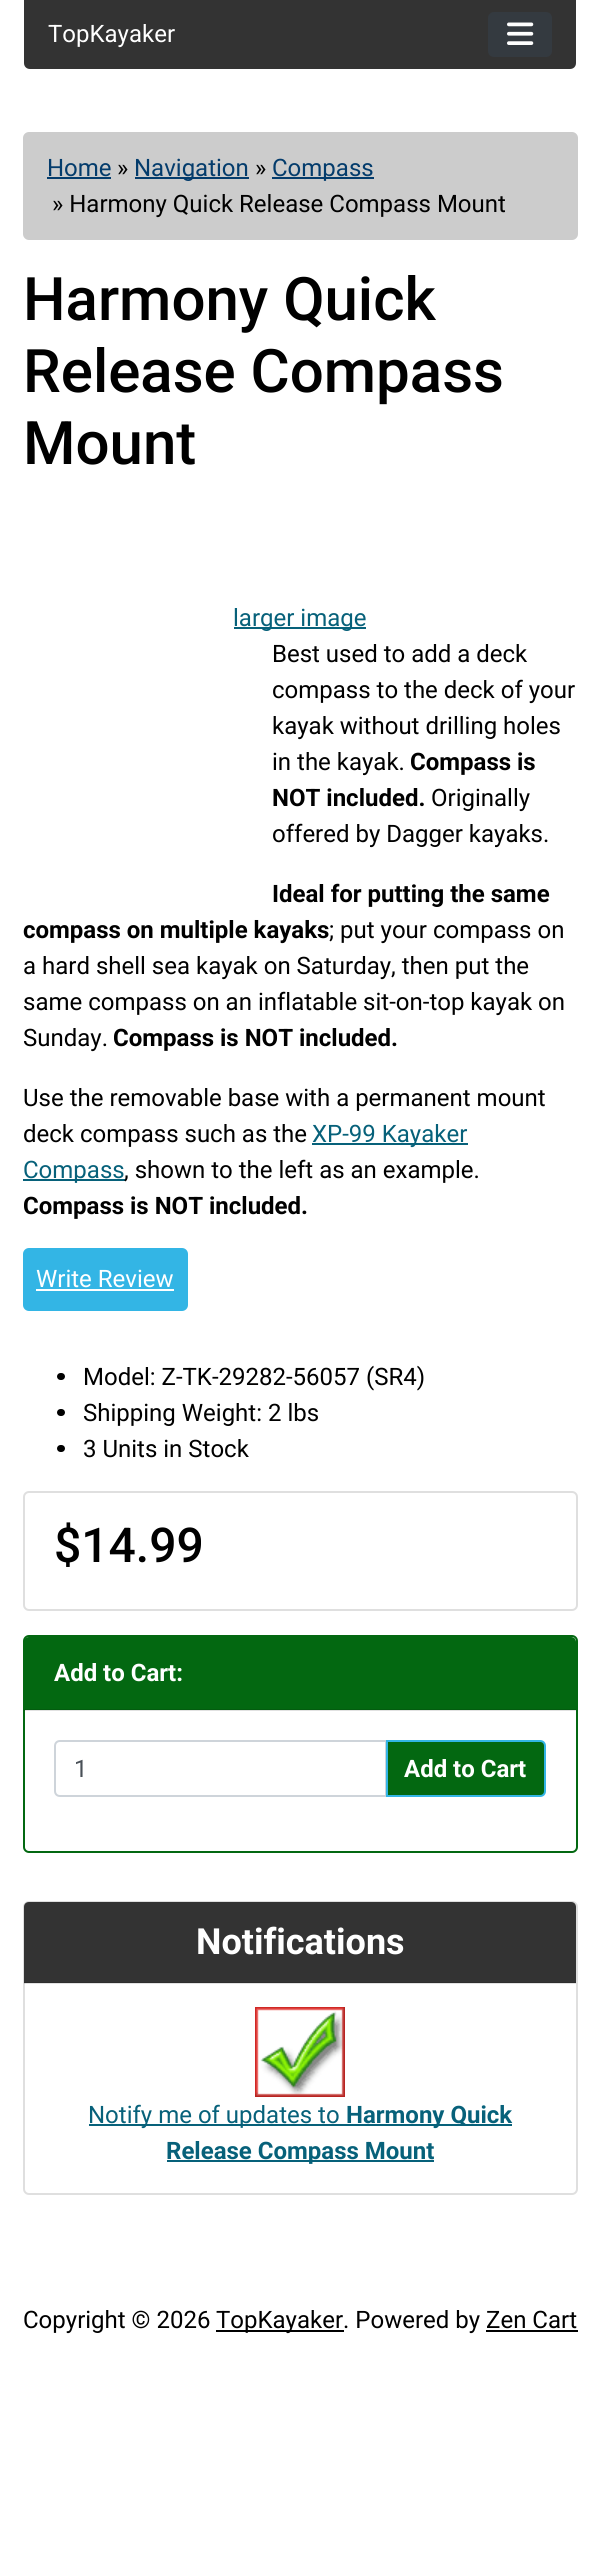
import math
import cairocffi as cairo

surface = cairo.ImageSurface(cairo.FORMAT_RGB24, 599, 2563)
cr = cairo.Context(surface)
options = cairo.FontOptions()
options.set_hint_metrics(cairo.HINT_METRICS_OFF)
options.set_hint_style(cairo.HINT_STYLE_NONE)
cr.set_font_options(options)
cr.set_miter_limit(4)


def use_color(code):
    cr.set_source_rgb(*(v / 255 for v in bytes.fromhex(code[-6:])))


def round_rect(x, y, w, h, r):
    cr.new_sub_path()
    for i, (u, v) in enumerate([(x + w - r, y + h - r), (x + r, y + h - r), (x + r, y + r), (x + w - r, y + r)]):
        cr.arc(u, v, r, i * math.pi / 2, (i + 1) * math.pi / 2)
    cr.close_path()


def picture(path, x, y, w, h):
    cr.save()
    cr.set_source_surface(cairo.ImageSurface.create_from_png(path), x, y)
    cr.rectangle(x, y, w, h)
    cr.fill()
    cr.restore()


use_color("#ffffff")
cr.paint()
use_color("#333333")
cr.new_path()
cr.move_to(24, 0)
cr.line_to(576, 0)
cr.line_to(576, 63)
cr.curve_to(576, 66.5, 573.5, 69, 570, 69)
cr.line_to(30, 69)
cr.curve_to(26.5, 69, 24, 66.5, 24, 63)
cr.close_path()
cr.fill()
cr.select_font_face("Roboto")
cr.set_font_size(24)
use_color("#ffffff")
cr.move_to(48, 42)
cr.show_text("TopKayaker")
use_color("#343a40")
round_rect(489, 13, 62, 43, 5)
cr.fill_preserve()
cr.stroke()
picture("img1.png", 507, 22, 27, 23)
use_color("#cccccc")
round_rect(23, 132, 555, 108, 6)
cr.fill()
use_color("#043c6c")
cr.move_to(47, 176)
cr.show_text("Home")
cr.rectangle(47, 177, 64, 2)
cr.fill()
use_color("#000000")
cr.move_to(117, 176)
cr.show_text("»")
use_color("#043c6c")
cr.rectangle(135, 177, 114, 2)
cr.fill()
cr.move_to(134, 176)
cr.show_text("Navigation")
use_color("#000000")
cr.move_to(255, 176)
cr.show_text("»")
use_color("#043c6c")
cr.rectangle(272, 177, 102, 2)
cr.fill()
cr.move_to(272, 176)
cr.show_text("Compass")
use_color("#000000")
cr.move_to(52, 212)
cr.show_text("» Harmony Quick Release Compass Mount")
cr.select_font_face("Roboto Medium")
cr.set_font_size(60)
cr.move_to(23, 320)
cr.show_text("Harmony Quick")
cr.move_to(23, 392)
cr.show_text("Release Compass")
cr.move_to(23, 464)
cr.show_text("Mount")
use_color("#07617a")
cr.rectangle(234, 627, 132, 2)
cr.fill()
cr.select_font_face("Roboto")
cr.set_font_size(24)
cr.move_to(233, 626)
cr.show_text("larger image")
use_color("#000000")
cr.move_to(272, 662)
cr.show_text("Best used to add a deck")
cr.move_to(272, 698)
cr.show_text("compass to the deck of your")
cr.move_to(272, 734)
cr.show_text("kayak without drilling holes")
cr.move_to(272, 770)
cr.show_text("in the kayak.")
cr.select_font_face("Roboto", cairo.FONT_SLANT_NORMAL, cairo.FONT_WEIGHT_BOLD)
cr.move_to(410, 770)
cr.show_text("Compass is")
cr.move_to(272, 806)
cr.show_text("NOT included.")
cr.select_font_face("Roboto")
cr.move_to(431, 806)
cr.show_text("Originally")
cr.move_to(272, 842)
cr.show_text("offered by Dagger kayaks.")
cr.select_font_face("Roboto", cairo.FONT_SLANT_NORMAL, cairo.FONT_WEIGHT_BOLD)
cr.move_to(272, 902)
cr.show_text("Ideal for putting the same")
cr.move_to(23, 938)
cr.show_text("compass on multiple kayaks")
cr.select_font_face("Roboto")
cr.move_to(329, 938)
cr.show_text("; put your compass on")
cr.move_to(23, 974)
cr.show_text("a hard shell sea kayak on Saturday, then put the")
cr.move_to(23, 1010)
cr.show_text("same compass on an inflatable sit-on-top kayak on")
cr.move_to(23, 1046)
cr.show_text("Sunday.")
cr.select_font_face("Roboto", cairo.FONT_SLANT_NORMAL, cairo.FONT_WEIGHT_BOLD)
cr.move_to(113, 1046)
cr.show_text("Compass is NOT included.")
cr.select_font_face("Roboto")
cr.move_to(23, 1106)
cr.show_text("Use the removable base with a permanent mount")
cr.move_to(23, 1142)
cr.show_text("deck compass such as the")
use_color("#07617a")
cr.rectangle(312, 1143, 156, 2)
cr.fill()
cr.move_to(312, 1142)
cr.show_text("XP-99 Kayaker")
cr.rectangle(23, 1179, 102, 2)
cr.fill()
cr.move_to(23, 1178)
cr.show_text("Compass")
use_color("#000000")
cr.move_to(124, 1178)
cr.show_text(", shown to the left as an example.")
cr.select_font_face("Roboto", cairo.FONT_SLANT_NORMAL, cairo.FONT_WEIGHT_BOLD)
cr.move_to(23, 1214)
cr.show_text("Compass is NOT included.")
use_color("#33b5e5")
round_rect(24, 1249, 163, 61, 5)
cr.fill_preserve()
cr.stroke()
cr.select_font_face("Roboto")
use_color("#ffffff")
cr.move_to(36, 1287)
cr.show_text("Write Review")
cr.rectangle(36, 1289, 138, 2)
cr.fill()
use_color("#000000")
round_rect(57, 1373, 8, 7, 3.5)
cr.fill()
cr.move_to(83, 1385)
cr.show_text("Model: Z-TK-29282-56057 (SR4)")
round_rect(57, 1409, 8, 7, 3.5)
cr.fill()
cr.move_to(83, 1421)
cr.show_text("Shipping Weight: 2 lbs")
round_rect(57, 1445, 8, 7, 3.5)
cr.fill()
cr.move_to(83, 1457)
cr.show_text("3 Units in Stock")
round_rect(24, 1492, 553, 118, 5)
use_color("#dfdfdf")
cr.stroke()
cr.select_font_face("Roboto Medium")
cr.set_font_size(48)
use_color("#000000")
cr.move_to(54, 1562)
cr.show_text("$14.99")
round_rect(24, 1636, 553, 216, 5)
use_color("#036811")
cr.stroke()
cr.new_path()
cr.move_to(29, 1637)
cr.line_to(571, 1637)
cr.curve_to(574, 1637, 576, 1639, 576, 1642)
cr.line_to(576, 1710)
cr.line_to(24, 1710)
cr.line_to(24, 1642)
cr.curve_to(24, 1639, 26, 1637, 29, 1637)
cr.close_path()
cr.fill()
cr.set_source_rgba(0, 0, 0, 0.12)
cr.rectangle(24, 1709, 552, 2)
cr.fill()
cr.select_font_face("Roboto", cairo.FONT_SLANT_NORMAL, cairo.FONT_WEIGHT_BOLD)
cr.set_font_size(24)
use_color("#ffffff")
cr.move_to(54, 1681)
cr.show_text("Add to Cart:")
cr.new_path()
cr.move_to(60, 1741)
cr.line_to(386, 1741)
cr.line_to(386, 1796)
cr.line_to(60, 1796)
cr.curve_to(57, 1796, 55, 1794, 55, 1791)
cr.line_to(55, 1746)
cr.curve_to(55, 1743, 57, 1741, 60, 1741)
cr.close_path()
use_color("#ced4da")
cr.stroke()
cr.select_font_face("Roboto")
use_color("#495057")
cr.move_to(74, 1777)
cr.show_text("1")
use_color("#036811")
cr.new_path()
cr.move_to(387, 1741)
cr.line_to(540, 1741)
cr.curve_to(543, 1741, 545, 1743, 545, 1746)
cr.line_to(545, 1791)
cr.curve_to(545, 1794, 543, 1796, 540, 1796)
cr.line_to(387, 1796)
cr.close_path()
cr.fill_preserve()
use_color("#33b5e5")
cr.stroke()
cr.select_font_face("Roboto", cairo.FONT_SLANT_NORMAL, cairo.FONT_WEIGHT_BOLD)
use_color("#ffffff")
cr.move_to(404, 1777)
cr.show_text("Add to Cart")
round_rect(24, 1902, 553, 292, 5)
use_color("#dfdfdf")
cr.stroke()
use_color("#333333")
cr.new_path()
cr.move_to(29, 1902)
cr.line_to(571, 1902)
cr.curve_to(574, 1902, 576, 1904, 576, 1907)
cr.line_to(576, 1983)
cr.line_to(24, 1983)
cr.line_to(24, 1907)
cr.curve_to(24, 1904, 26, 1902, 29, 1902)
cr.close_path()
cr.fill()
cr.set_source_rgba(0, 0, 0, 0.12)
cr.rectangle(24, 1982, 552, 2)
cr.fill()
cr.set_font_size(36)
use_color("#ffffff")
cr.move_to(196, 1954)
cr.show_text("Notifications")
picture("img2.png", 255, 2007, 90, 90)
use_color("#07617a")
cr.rectangle(89, 2124, 423, 2)
cr.fill()
cr.select_font_face("Roboto")
cr.set_font_size(24)
cr.move_to(88, 2123)
cr.show_text("Notify me of updates to")
cr.select_font_face("Roboto", cairo.FONT_SLANT_NORMAL, cairo.FONT_WEIGHT_BOLD)
cr.move_to(346, 2123)
cr.show_text("Harmony Quick")
cr.rectangle(167, 2160, 267, 2)
cr.fill()
cr.move_to(166, 2159)
cr.show_text("Release Compass Mount")
cr.select_font_face("Roboto")
use_color("#000000")
cr.move_to(23, 2328)
cr.show_text("Copyright © 2026")
cr.rectangle(216, 2330, 128, 2)
cr.fill()
cr.move_to(216, 2328)
cr.show_text("TopKayaker. Powered by Zen Cart")
cr.rectangle(486, 2330, 92, 2)
cr.fill()
surface.write_to_png("result.png")
